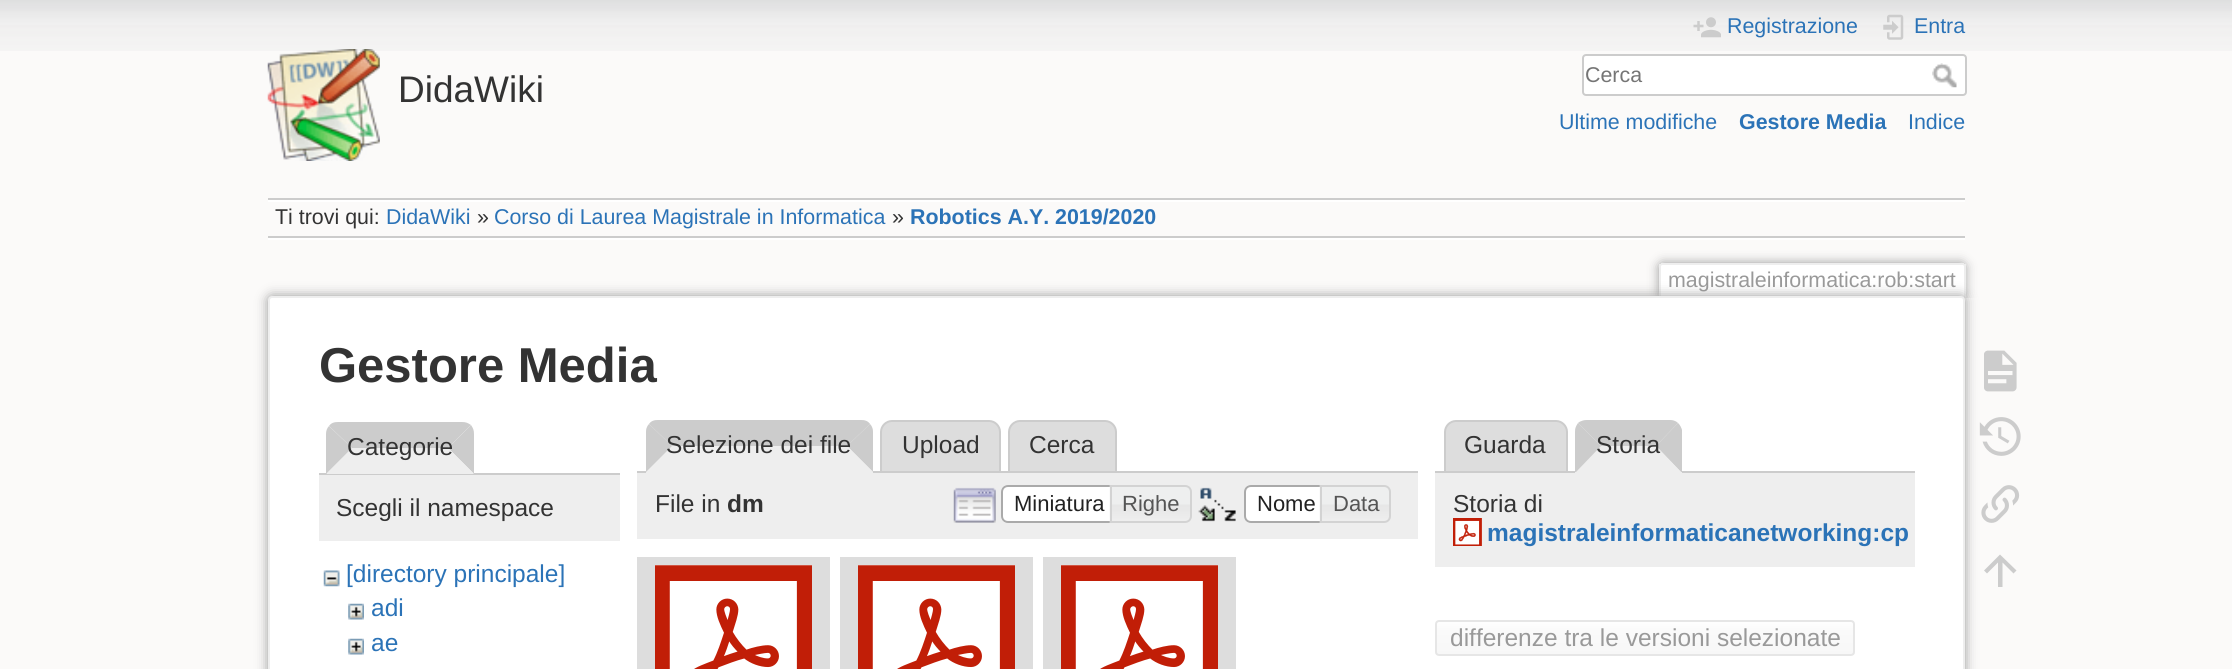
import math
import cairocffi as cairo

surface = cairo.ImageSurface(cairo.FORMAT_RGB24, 2232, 669)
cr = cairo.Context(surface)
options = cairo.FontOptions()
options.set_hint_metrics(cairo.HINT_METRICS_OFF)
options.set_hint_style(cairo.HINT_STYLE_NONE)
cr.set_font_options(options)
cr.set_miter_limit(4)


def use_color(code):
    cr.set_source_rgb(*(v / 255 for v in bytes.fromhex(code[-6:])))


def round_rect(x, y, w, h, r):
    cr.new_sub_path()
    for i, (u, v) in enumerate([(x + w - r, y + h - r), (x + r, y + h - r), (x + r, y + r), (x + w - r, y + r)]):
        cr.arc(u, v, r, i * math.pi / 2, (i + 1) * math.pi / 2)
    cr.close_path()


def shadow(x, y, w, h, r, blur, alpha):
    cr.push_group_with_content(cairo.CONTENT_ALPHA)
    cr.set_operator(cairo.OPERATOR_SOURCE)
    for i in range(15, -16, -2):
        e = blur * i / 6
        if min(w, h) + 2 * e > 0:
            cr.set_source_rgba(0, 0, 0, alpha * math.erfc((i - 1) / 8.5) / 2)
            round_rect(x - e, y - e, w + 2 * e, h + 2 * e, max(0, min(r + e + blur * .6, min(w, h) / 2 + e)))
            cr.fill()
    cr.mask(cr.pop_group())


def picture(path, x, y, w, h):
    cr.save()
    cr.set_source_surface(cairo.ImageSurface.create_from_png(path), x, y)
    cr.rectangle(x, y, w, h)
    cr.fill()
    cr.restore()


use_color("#fbfaf9")
cr.paint()
picture("img1.png", 0, 0, 2232, 51)
picture("img2.png", 267, 49, 113, 112)
cr.select_font_face("Liberation Sans")
cr.set_font_size(37)
use_color("#333333")
cr.move_to(398, 102)
cr.show_text("DidaWiki")
picture("img3.png", 1693, 17, 28, 21)
cr.set_font_size(21.4)
use_color("#2b73b7")
cr.move_to(1727, 33)
cr.show_text("Registrazione")
picture("img4.png", 1883, 14, 21, 26)
cr.move_to(1914, 33)
cr.show_text("Entra")
use_color("#ffffff")
round_rect(1583, 55, 383, 40, 3)
cr.fill_preserve()
use_color("#cccccc")
cr.stroke()
use_color("#757575")
cr.move_to(1585, 82)
cr.show_text("Cerca")
picture("img5.png", 1932, 63, 25, 25)
use_color("#2b73b7")
cr.move_to(1559, 129)
cr.show_text("Ultime modifiche")
cr.select_font_face("Liberation Sans", cairo.FONT_SLANT_NORMAL, cairo.FONT_WEIGHT_BOLD)
cr.move_to(1739, 129)
cr.show_text("Gestore Media")
cr.select_font_face("Liberation Sans")
cr.move_to(1908, 129)
cr.show_text("Indice")
use_color("#cccccc")
cr.rectangle(268, 198, 1697, 2)
cr.fill()
use_color("#ffffff")
cr.rectangle(268, 238, 1697, 2)
cr.fill()
cr.rectangle(268, 200, 1697, 2)
cr.fill()
use_color("#cccccc")
cr.rectangle(268, 236, 1697, 2)
cr.fill()
use_color("#333333")
cr.move_to(275, 224)
cr.show_text("Ti trovi qui:")
use_color("#2b73b7")
cr.move_to(386, 224)
cr.show_text("DidaWiki")
use_color("#333333")
cr.move_to(477, 224)
cr.show_text("»")
use_color("#2b73b7")
cr.move_to(494, 224)
cr.show_text("Corso di Laurea Magistrale in Informatica")
use_color("#333333")
cr.move_to(892, 224)
cr.show_text("»")
cr.select_font_face("Liberation Sans", cairo.FONT_SLANT_NORMAL, cairo.FONT_WEIGHT_BOLD)
use_color("#2b73b7")
cr.move_to(910, 224)
cr.show_text("Robotics A.Y. 2019/2020")
cr.save()
cr.rectangle(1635, 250, 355, 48)
cr.clip()
use_color("#999999")
shadow(1659, 263, 306, 35, 4, 5.5, 1)
cr.restore()
use_color("#ffffff")
cr.new_path()
cr.move_to(1663, 264)
cr.line_to(1962, 264)
cr.curve_to(1963, 264, 1964, 265, 1964, 266)
cr.line_to(1964, 298)
cr.line_to(1661, 298)
cr.line_to(1661, 266)
cr.curve_to(1661, 265, 1662, 264, 1663, 264)
cr.close_path()
cr.fill()
use_color("#eeeeee")
cr.rectangle(1661, 263, 303, 2)
cr.fill()
cr.rectangle(1964, 264, 2, 34)
cr.fill()
cr.rectangle(1659, 264, 2, 34)
cr.fill()
cr.select_font_face("Liberation Sans")
use_color("#999999")
cr.move_to(1668, 287)
cr.show_text("magistraleinformatica:rob:start")
use_color("#999999")
shadow(268, 296, 1697, 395, 4, 6, 1)
use_color("#ffffff")
round_rect(269, 297, 1695, 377, 3)
cr.fill_preserve()
use_color("#eeeeee")
cr.stroke()
cr.select_font_face("Liberation Sans", cairo.FONT_SLANT_NORMAL, cairo.FONT_WEIGHT_BOLD)
cr.set_font_size(49)
use_color("#333333")
cr.move_to(319, 382)
cr.show_text("Gestore Media")
use_color("#cccccc")
cr.new_path()
cr.move_to(338, 422)
cr.curve_to(334, 422, 331, 423, 329, 426)
cr.line_to(352, 448)
cr.line_to(448, 448)
cr.line_to(471, 425)
cr.curve_to(468, 423, 466, 422, 462, 422)
cr.close_path()
cr.fill()
cr.rectangle(319, 473, 301, 2)
cr.fill()
cr.new_path()
cr.move_to(474, 474)
cr.line_to(474, 434)
cr.curve_to(474, 430, 473, 428, 471, 425)
cr.line_to(448, 448)
cr.close_path()
cr.fill()
use_color("#eeeeee")
cr.new_path()
cr.move_to(474, 474)
cr.line_to(448, 448)
cr.line_to(352, 448)
cr.line_to(326, 474)
cr.close_path()
cr.fill()
use_color("#cccccc")
cr.new_path()
cr.move_to(329, 426)
cr.curve_to(327, 428, 326, 431, 326, 434)
cr.line_to(326, 474)
cr.line_to(352, 448)
cr.close_path()
cr.fill()
cr.select_font_face("Liberation Sans")
cr.set_font_size(24.5)
use_color("#333333")
cr.move_to(347, 455)
cr.show_text("Categorie")
use_color("#eeeeee")
cr.rectangle(319, 475, 301, 66)
cr.fill()
use_color("#333333")
cr.move_to(336, 516)
cr.show_text("Scegli il namespace")
picture("img6.png", 323, 570, 17, 17)
use_color("#2b73b7")
cr.move_to(346, 582)
cr.show_text("[directory principale]")
picture("img7.png", 348, 603, 16, 17)
cr.move_to(371, 616)
cr.show_text("adi")
picture("img7.png", 348, 638, 16, 17)
cr.move_to(371, 651)
cr.show_text("ae")
use_color("#dddddd")
cr.new_path()
cr.move_to(892, 421)
cr.line_to(989, 421)
cr.curve_to(995, 421, 1000, 426, 1000, 432)
cr.line_to(1000, 472)
cr.line_to(881, 472)
cr.line_to(881, 432)
cr.curve_to(881, 426, 886, 421, 892, 421)
cr.close_path()
cr.fill_preserve()
use_color("#cccccc")
cr.stroke()
use_color("#dddddd")
cr.new_path()
cr.move_to(1020, 421)
cr.line_to(1105, 421)
cr.curve_to(1111, 421, 1116, 426, 1116, 432)
cr.line_to(1116, 472)
cr.line_to(1009, 472)
cr.line_to(1009, 432)
cr.curve_to(1009, 426, 1014, 421, 1020, 421)
cr.close_path()
cr.fill_preserve()
use_color("#cccccc")
cr.stroke()
cr.rectangle(637, 471, 781, 2)
cr.fill()
use_color("#eeeeee")
cr.new_path()
cr.move_to(658, 420)
cr.line_to(861, 420)
cr.curve_to(867.5, 420, 873, 425.5, 873, 432)
cr.line_to(873, 473)
cr.line_to(646, 473)
cr.line_to(646, 432)
cr.curve_to(646, 425.5, 651.5, 420, 658, 420)
cr.close_path()
cr.fill()
use_color("#cccccc")
cr.new_path()
cr.move_to(658, 420)
cr.line_to(861, 420)
cr.curve_to(865, 420, 868, 421, 870, 424)
cr.line_to(847, 446)
cr.line_to(672, 446)
cr.line_to(649, 424)
cr.curve_to(651, 421, 654, 420, 658, 420)
cr.close_path()
cr.fill()
cr.new_path()
cr.move_to(870, 424)
cr.line_to(847, 446)
cr.line_to(873, 472)
cr.line_to(873, 432)
cr.curve_to(873, 429, 872, 426, 870, 424)
cr.close_path()
cr.fill()
use_color("#eeeeee")
cr.new_path()
cr.move_to(873, 472)
cr.line_to(847, 446)
cr.line_to(672, 446)
cr.line_to(646, 472)
cr.close_path()
cr.fill()
use_color("#cccccc")
cr.new_path()
cr.move_to(649, 424)
cr.curve_to(647, 426, 646, 429, 646, 432)
cr.line_to(646, 472)
cr.line_to(672, 446)
cr.close_path()
cr.fill()
use_color("#333333")
cr.move_to(666, 453)
cr.show_text("Selezione dei file")
cr.move_to(902, 453)
cr.show_text("Upload")
cr.move_to(1029, 453)
cr.show_text("Cerca")
use_color("#eeeeee")
cr.rectangle(637, 473, 781, 66)
cr.fill()
use_color("#333333")
cr.move_to(655, 512)
cr.show_text("File in")
cr.select_font_face("Liberation Sans", cairo.FONT_SLANT_NORMAL, cairo.FONT_WEIGHT_BOLD)
cr.move_to(727, 512)
cr.show_text("dm")
picture("img8.png", 953, 487, 43, 36)
use_color("#ffffff")
cr.new_path()
cr.move_to(1008, 485)
cr.line_to(1118, 485)
cr.line_to(1118, 523)
cr.line_to(1008, 523)
cr.curve_to(1004, 523, 1001, 520, 1001, 516)
cr.line_to(1001, 492)
cr.curve_to(1001, 488, 1004, 485, 1008, 485)
cr.close_path()
cr.fill()
picture("img9.png", 1001, 485, 5, 38)
cr.new_path()
cr.move_to(1008, 486)
cr.line_to(1117, 486)
cr.line_to(1117, 522)
cr.line_to(1008, 522)
cr.curve_to(1004.5, 522, 1002, 519.5, 1002, 516)
cr.line_to(1002, 492)
cr.curve_to(1002, 488.5, 1004.5, 486, 1008, 486)
cr.close_path()
use_color("#aaaaaa")
cr.stroke()
cr.select_font_face("Liberation Sans")
cr.set_font_size(22)
use_color("#212121")
cr.move_to(1014, 511)
cr.show_text("Miniatura")
picture("img10.png", 1109, 485, 83, 38)
cr.new_path()
cr.move_to(1111, 486)
cr.line_to(1185, 486)
cr.curve_to(1188.5, 486, 1191, 488.5, 1191, 492)
cr.line_to(1191, 516)
cr.curve_to(1191, 519.5, 1188.5, 522, 1185, 522)
cr.line_to(1111, 522)
cr.close_path()
use_color("#d3d3d3")
cr.stroke()
use_color("#555555")
cr.move_to(1122, 511)
cr.show_text("Righe")
picture("img11.png", 1198, 487, 38, 35)
use_color("#ffffff")
cr.new_path()
cr.move_to(1251, 485)
cr.line_to(1328, 485)
cr.line_to(1328, 523)
cr.line_to(1251, 523)
cr.curve_to(1247, 523, 1244, 520, 1244, 516)
cr.line_to(1244, 492)
cr.curve_to(1244, 488, 1247, 485, 1251, 485)
cr.close_path()
cr.fill()
picture("img12.png", 1246, 485, 3, 38)
cr.new_path()
cr.move_to(1251, 486)
cr.line_to(1327, 486)
cr.line_to(1327, 522)
cr.line_to(1251, 522)
cr.curve_to(1247.5, 522, 1245, 519.5, 1245, 516)
cr.line_to(1245, 492)
cr.curve_to(1245, 488.5, 1247.5, 486, 1251, 486)
cr.close_path()
use_color("#aaaaaa")
cr.stroke()
use_color("#212121")
cr.move_to(1257, 511)
cr.show_text("Nome")
picture("img13.png", 1319, 485, 72, 38)
cr.new_path()
cr.move_to(1321, 486)
cr.line_to(1384, 486)
cr.curve_to(1387.5, 486, 1390, 488.5, 1390, 492)
cr.line_to(1390, 516)
cr.curve_to(1390, 519.5, 1387.5, 522, 1384, 522)
cr.line_to(1321, 522)
cr.close_path()
use_color("#d3d3d3")
cr.stroke()
use_color("#555555")
cr.move_to(1333, 511)
cr.show_text("Data")
use_color("#dddddd")
cr.rectangle(637, 557, 193, 112)
cr.fill()
picture("img14.png", 655, 565, 157, 104)
cr.rectangle(840, 557, 193, 112)
cr.fill()
picture("img14.png", 858, 565, 157, 104)
cr.rectangle(1043, 557, 193, 112)
cr.fill()
picture("img14.png", 1061, 565, 157, 104)
cr.new_path()
cr.move_to(1456, 421)
cr.line_to(1556, 421)
cr.curve_to(1562, 421, 1567, 426, 1567, 432)
cr.line_to(1567, 472)
cr.line_to(1445, 472)
cr.line_to(1445, 432)
cr.curve_to(1445, 426, 1450, 421, 1456, 421)
cr.close_path()
cr.fill_preserve()
use_color("#cccccc")
cr.stroke()
cr.set_font_size(24.5)
use_color("#333333")
cr.move_to(1464, 453)
cr.show_text("Guarda")
use_color("#cccccc")
cr.rectangle(1435, 471, 480, 2)
cr.fill()
use_color("#eeeeee")
cr.new_path()
cr.move_to(1587, 420)
cr.line_to(1670, 420)
cr.curve_to(1676.5, 420, 1682, 425.5, 1682, 432)
cr.line_to(1682, 473)
cr.line_to(1575, 473)
cr.line_to(1575, 432)
cr.curve_to(1575, 425.5, 1580.5, 420, 1587, 420)
cr.close_path()
cr.fill()
use_color("#cccccc")
cr.new_path()
cr.move_to(1587, 420)
cr.line_to(1670, 420)
cr.curve_to(1673, 420, 1676, 421, 1678, 423)
cr.line_to(1656, 446)
cr.line_to(1601, 446)
cr.line_to(1578, 423)
cr.curve_to(1580, 421, 1584, 420, 1587, 420)
cr.close_path()
cr.fill()
cr.new_path()
cr.move_to(1678, 423)
cr.line_to(1656, 446)
cr.line_to(1681, 472)
cr.line_to(1682, 472)
cr.line_to(1682, 430)
cr.curve_to(1681, 427, 1680, 425, 1678, 423)
cr.close_path()
cr.fill()
use_color("#eeeeee")
cr.new_path()
cr.move_to(1681, 472)
cr.line_to(1656, 446)
cr.line_to(1601, 446)
cr.line_to(1576, 472)
cr.close_path()
cr.fill()
use_color("#cccccc")
cr.new_path()
cr.move_to(1576, 472)
cr.line_to(1601, 446)
cr.line_to(1578, 423)
cr.curve_to(1576, 426, 1575, 428, 1575, 432)
cr.line_to(1575, 472)
cr.close_path()
cr.fill()
use_color("#333333")
cr.move_to(1596, 453)
cr.show_text("Storia")
use_color("#eeeeee")
cr.rectangle(1435, 473, 480, 94)
cr.fill()
use_color("#333333")
cr.move_to(1453, 512)
cr.show_text("Storia di")
picture("img15.png", 1453, 518, 29, 28)
cr.select_font_face("Liberation Sans", cairo.FONT_SLANT_NORMAL, cairo.FONT_WEIGHT_BOLD)
use_color("#2b73b7")
cr.move_to(1487, 541)
cr.show_text("magistraleinformaticanetworking:cp")
cr.save()
round_rect(1435, 620, 420, 36, 4)
cr.clip()
gradient = cairo.LinearGradient(1645, 621, 1645, 655)
gradient.add_color_stop_rgba(0, 1, 1, 1, 1)
gradient.add_color_stop_rgba(0.3, 0.98, 0.98, 0.98, 1)
gradient.add_color_stop_rgba(0.99, 0.969, 0.969, 0.969, 1)
gradient.add_color_stop_rgba(0.99, 0.902, 0.902, 0.902, 1)
cr.set_source(gradient)
cr.rectangle(1435, 621, 420, 34)
cr.fill()
cr.restore()
round_rect(1436, 621, 418, 34, 3)
use_color("#e6e6e6")
cr.stroke()
cr.select_font_face("Liberation Sans")
use_color("#999999")
cr.move_to(1450, 646)
cr.show_text("differenze tra le versioni selezionate")
picture("img16.png", 1984, 350, 33, 42)
picture("img17.png", 1979, 417, 42, 39)
picture("img18.png", 1981, 485, 39, 38)
use_color("#cccccc")
cr.new_path()
cr.move_to(2002.5, 587)
cr.line_to(1998, 587)
cr.line_to(1998, 562.5)
cr.line_to(1987, 573.5)
cr.line_to(1984, 570.5)
cr.line_to(2000, 554.5)
cr.line_to(2016.5, 570.5)
cr.line_to(2013.5, 573.5)
cr.line_to(2002.5, 562.5)
cr.close_path()
cr.fill()
surface.write_to_png("result.png")
